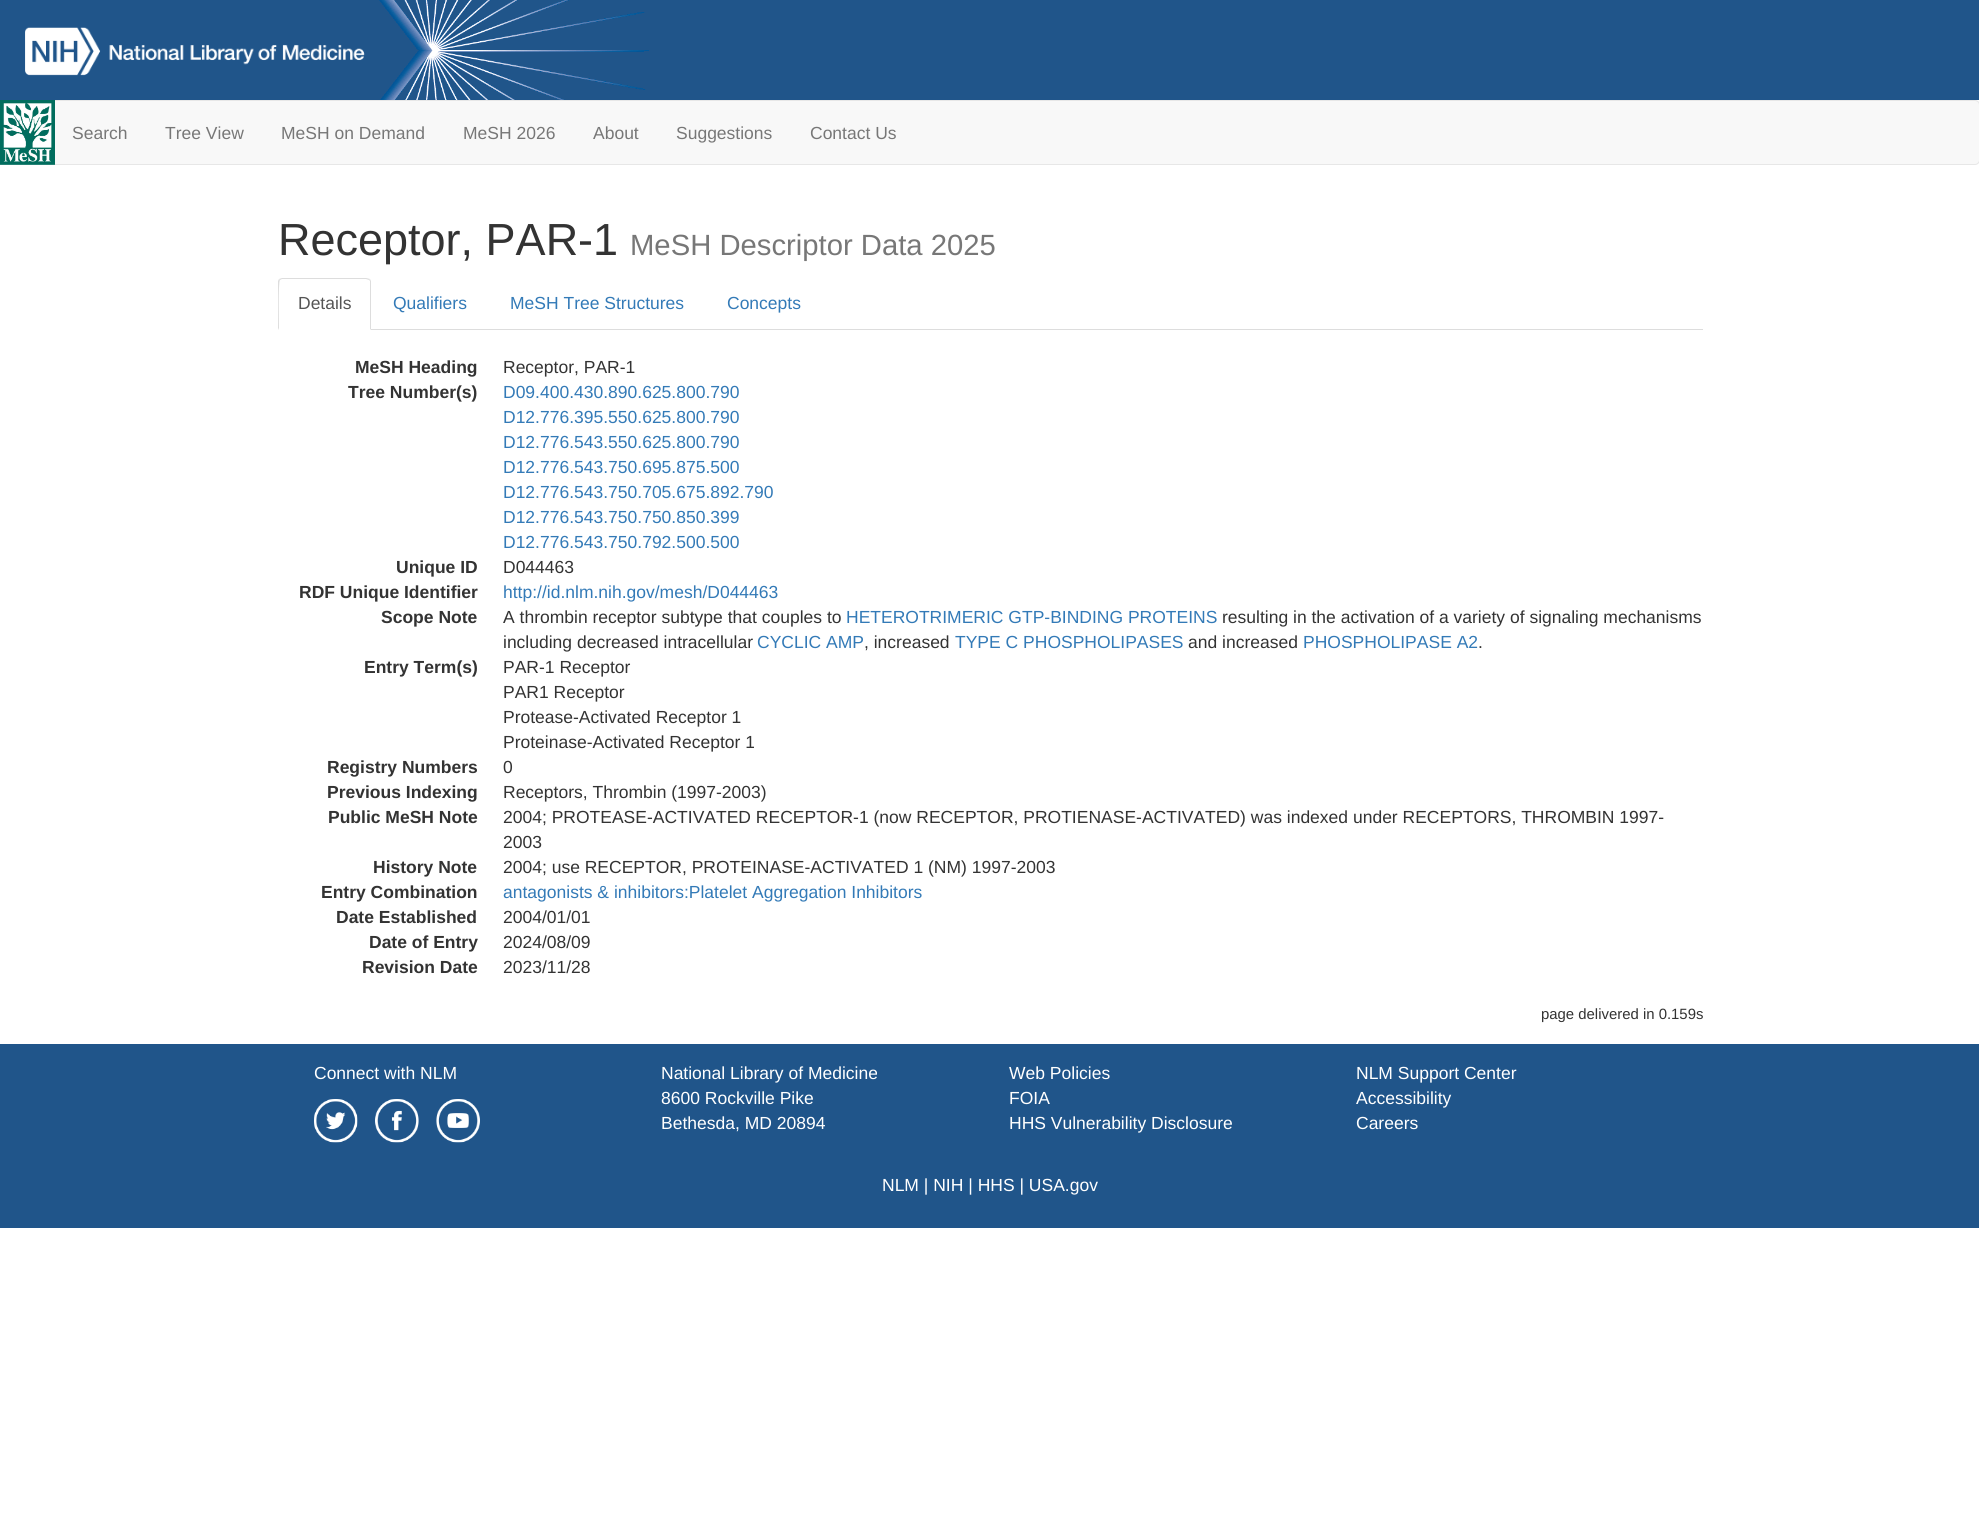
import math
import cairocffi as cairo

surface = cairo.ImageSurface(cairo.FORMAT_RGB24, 1979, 1523)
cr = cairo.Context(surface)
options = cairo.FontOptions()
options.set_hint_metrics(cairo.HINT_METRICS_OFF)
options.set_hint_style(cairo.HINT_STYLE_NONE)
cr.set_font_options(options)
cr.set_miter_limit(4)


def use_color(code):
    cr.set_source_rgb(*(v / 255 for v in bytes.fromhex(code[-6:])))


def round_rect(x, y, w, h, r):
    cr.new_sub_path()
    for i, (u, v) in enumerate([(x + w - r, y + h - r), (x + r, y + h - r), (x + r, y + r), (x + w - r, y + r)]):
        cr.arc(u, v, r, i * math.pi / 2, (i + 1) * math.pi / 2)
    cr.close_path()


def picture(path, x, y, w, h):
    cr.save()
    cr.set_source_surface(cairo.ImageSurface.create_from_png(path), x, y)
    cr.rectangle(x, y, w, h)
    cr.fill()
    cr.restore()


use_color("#ffffff")
cr.paint()
use_color("#20558a")
cr.rectangle(0, 0, 1979, 100)
cr.fill()
picture("img1.png", 379, 0, 270, 100)
picture("img2.png", 25, 27, 340, 49)
use_color("#f8f8f8")
round_rect(0.5, 100.5, 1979, 64, 4.5)
cr.fill_preserve()
use_color("#e7e7e7")
cr.set_line_width(1)
cr.stroke()
picture("img3.png", 0, 100, 55, 65)
cr.select_font_face("Liberation Sans")
cr.set_font_size(17.5)
use_color("#777777")
cr.move_to(72, 139)
cr.show_text("Search")
cr.move_to(165, 139)
cr.show_text("Tree View")
cr.move_to(281, 139)
cr.show_text("MeSH on Demand")
cr.move_to(463, 139)
cr.show_text("MeSH 2026")
cr.move_to(593, 139)
cr.show_text("About")
cr.move_to(676, 139)
cr.show_text("Suggestions")
cr.move_to(810, 139)
cr.show_text("Contact Us")
cr.set_font_size(45)
use_color("#333333")
cr.move_to(278, 255)
cr.show_text("Receptor, PAR-1")
cr.set_font_size(29.25)
use_color("#777777")
cr.move_to(630, 255)
cr.show_text("MeSH Descriptor Data 2025")
use_color("#dddddd")
cr.rectangle(371, 329, 1332, 1)
cr.fill()
cr.new_path()
cr.move_to(282, 278)
cr.line_to(279, 279)
cr.line_to(280, 280)
cr.line_to(282, 279)
cr.line_to(366, 279)
cr.line_to(369, 280)
cr.line_to(370, 279)
cr.line_to(366, 278)
cr.close_path()
cr.fill()
cr.new_path()
cr.move_to(371, 330)
cr.line_to(371, 281)
cr.line_to(370, 279)
cr.line_to(369, 280)
cr.line_to(370, 281)
cr.line_to(370, 329)
cr.close_path()
cr.fill()
cr.new_path()
cr.move_to(279, 279)
cr.line_to(278, 281)
cr.line_to(278, 330)
cr.line_to(279, 328)
cr.curve_to(279, 323, 278, 282, 280, 280)
cr.close_path()
cr.fill()
cr.set_font_size(17.5)
use_color("#555555")
cr.move_to(298, 309)
cr.show_text("Details")
use_color("#337ab7")
cr.move_to(393, 309)
cr.show_text("Qualifiers")
cr.move_to(510, 309)
cr.show_text("MeSH Tree Structures")
cr.move_to(727, 309)
cr.show_text("Concepts")
cr.select_font_face("Liberation Sans", cairo.FONT_SLANT_NORMAL, cairo.FONT_WEIGHT_BOLD)
use_color("#333333")
cr.move_to(355, 373)
cr.show_text("MeSH Heading")
cr.select_font_face("Liberation Sans")
cr.move_to(503, 373)
cr.show_text("Receptor, PAR-1")
cr.select_font_face("Liberation Sans", cairo.FONT_SLANT_NORMAL, cairo.FONT_WEIGHT_BOLD)
cr.move_to(348, 398)
cr.show_text("Tree Number(s)")
cr.select_font_face("Liberation Sans")
use_color("#337ab7")
cr.move_to(503, 398)
cr.show_text("D09.400.430.890.625.800.790")
cr.move_to(503, 423)
cr.show_text("D12.776.395.550.625.800.790")
cr.move_to(503, 448)
cr.show_text("D12.776.543.550.625.800.790")
cr.move_to(503, 473)
cr.show_text("D12.776.543.750.695.875.500")
cr.move_to(503, 498)
cr.show_text("D12.776.543.750.705.675.892.790")
cr.move_to(503, 523)
cr.show_text("D12.776.543.750.750.850.399")
cr.move_to(503, 548)
cr.show_text("D12.776.543.750.792.500.500")
cr.select_font_face("Liberation Sans", cairo.FONT_SLANT_NORMAL, cairo.FONT_WEIGHT_BOLD)
use_color("#333333")
cr.move_to(396, 573)
cr.show_text("Unique ID")
cr.select_font_face("Liberation Sans")
cr.move_to(503, 573)
cr.show_text("D044463")
cr.select_font_face("Liberation Sans", cairo.FONT_SLANT_NORMAL, cairo.FONT_WEIGHT_BOLD)
cr.move_to(299, 598)
cr.show_text("RDF Unique Identifier")
cr.select_font_face("Liberation Sans")
use_color("#337ab7")
cr.move_to(503, 598)
cr.show_text("http://id.nlm.nih.gov/mesh/D044463")
cr.select_font_face("Liberation Sans", cairo.FONT_SLANT_NORMAL, cairo.FONT_WEIGHT_BOLD)
use_color("#333333")
cr.move_to(381, 623)
cr.show_text("Scope Note")
cr.select_font_face("Liberation Sans")
cr.move_to(503, 623)
cr.show_text("A thrombin receptor subtype that couples to")
use_color("#337ab7")
cr.move_to(846, 623)
cr.show_text("HETEROTRIMERIC GTP-BINDING PROTEINS")
use_color("#333333")
cr.move_to(1222, 623)
cr.show_text("resulting in the activation of a variety of signaling mechanisms")
cr.move_to(503, 648)
cr.show_text("including decreased intracellular")
use_color("#337ab7")
cr.move_to(757, 648)
cr.show_text("CYCLIC AMP")
use_color("#333333")
cr.move_to(864, 648)
cr.show_text(", increased")
use_color("#337ab7")
cr.move_to(955, 648)
cr.show_text("TYPE C PHOSPHOLIPASES")
use_color("#333333")
cr.move_to(1188, 648)
cr.show_text("and increased")
use_color("#337ab7")
cr.move_to(1303, 648)
cr.show_text("PHOSPHOLIPASE A2")
use_color("#333333")
cr.move_to(1478, 648)
cr.show_text(".")
cr.select_font_face("Liberation Sans", cairo.FONT_SLANT_NORMAL, cairo.FONT_WEIGHT_BOLD)
cr.move_to(364, 673)
cr.show_text("Entry Term(s)")
cr.select_font_face("Liberation Sans")
cr.move_to(503, 673)
cr.show_text("PAR-1 Receptor")
cr.move_to(503, 698)
cr.show_text("PAR1 Receptor")
cr.move_to(503, 723)
cr.show_text("Protease-Activated Receptor 1")
cr.move_to(503, 748)
cr.show_text("Proteinase-Activated Receptor 1")
cr.select_font_face("Liberation Sans", cairo.FONT_SLANT_NORMAL, cairo.FONT_WEIGHT_BOLD)
cr.move_to(327, 773)
cr.show_text("Registry Numbers")
cr.select_font_face("Liberation Sans")
cr.move_to(503, 773)
cr.show_text("0")
cr.select_font_face("Liberation Sans", cairo.FONT_SLANT_NORMAL, cairo.FONT_WEIGHT_BOLD)
cr.move_to(327, 798)
cr.show_text("Previous Indexing")
cr.select_font_face("Liberation Sans")
cr.move_to(503, 798)
cr.show_text("Receptors, Thrombin (1997-2003)")
cr.select_font_face("Liberation Sans", cairo.FONT_SLANT_NORMAL, cairo.FONT_WEIGHT_BOLD)
cr.move_to(328, 823)
cr.show_text("Public MeSH Note")
cr.select_font_face("Liberation Sans")
cr.move_to(503, 823)
cr.show_text("2004; PROTEASE-ACTIVATED RECEPTOR-1 (now RECEPTOR, PROTIENASE-ACTIVATED) was indexed under RECEPTORS, THROMBIN 1997-")
cr.move_to(503, 848)
cr.show_text("2003")
cr.select_font_face("Liberation Sans", cairo.FONT_SLANT_NORMAL, cairo.FONT_WEIGHT_BOLD)
cr.move_to(373, 873)
cr.show_text("History Note")
cr.select_font_face("Liberation Sans")
cr.move_to(503, 873)
cr.show_text("2004; use RECEPTOR, PROTEINASE-ACTIVATED 1 (NM) 1997-2003")
cr.select_font_face("Liberation Sans", cairo.FONT_SLANT_NORMAL, cairo.FONT_WEIGHT_BOLD)
cr.move_to(321, 898)
cr.show_text("Entry Combination")
cr.select_font_face("Liberation Sans")
use_color("#337ab7")
cr.move_to(503, 898)
cr.show_text("antagonists & inhibitors:Platelet Aggregation Inhibitors")
cr.select_font_face("Liberation Sans", cairo.FONT_SLANT_NORMAL, cairo.FONT_WEIGHT_BOLD)
use_color("#333333")
cr.move_to(336, 923)
cr.show_text("Date Established")
cr.select_font_face("Liberation Sans")
cr.move_to(503, 923)
cr.show_text("2004/01/01")
cr.select_font_face("Liberation Sans", cairo.FONT_SLANT_NORMAL, cairo.FONT_WEIGHT_BOLD)
cr.move_to(369, 948)
cr.show_text("Date of Entry")
cr.select_font_face("Liberation Sans")
cr.move_to(503, 948)
cr.show_text("2024/08/09")
cr.select_font_face("Liberation Sans", cairo.FONT_SLANT_NORMAL, cairo.FONT_WEIGHT_BOLD)
cr.move_to(362, 973)
cr.show_text("Revision Date")
cr.select_font_face("Liberation Sans")
cr.move_to(503, 973)
cr.show_text("2023/11/28")
cr.set_font_size(14.9)
cr.move_to(1541, 1019)
cr.show_text("page delivered in 0.159s")
use_color("#20558a")
cr.rectangle(0, 1044, 1979, 184)
cr.fill()
cr.set_font_size(17.5)
use_color("#ffffff")
cr.move_to(314, 1079)
cr.show_text("Connect with NLM")
picture("img4.png", 314, 1099, 44, 44)
picture("img5.png", 375, 1099, 44, 44)
picture("img6.png", 436, 1099, 44, 44)
cr.move_to(661, 1079)
cr.show_text("National Library of Medicine")
cr.move_to(661, 1104)
cr.show_text("8600 Rockville Pike")
cr.move_to(661, 1129)
cr.show_text("Bethesda, MD 20894")
cr.move_to(1009, 1079)
cr.show_text("Web Policies")
cr.move_to(1009, 1104)
cr.show_text("FOIA")
cr.move_to(1009, 1129)
cr.show_text("HHS Vulnerability Disclosure")
cr.move_to(1356, 1079)
cr.show_text("NLM Support Center")
cr.move_to(1356, 1104)
cr.show_text("Accessibility")
cr.move_to(1356, 1129)
cr.show_text("Careers")
cr.move_to(882, 1191)
cr.show_text("NLM | NIH | HHS | USA.gov")
surface.write_to_png("result.png")
